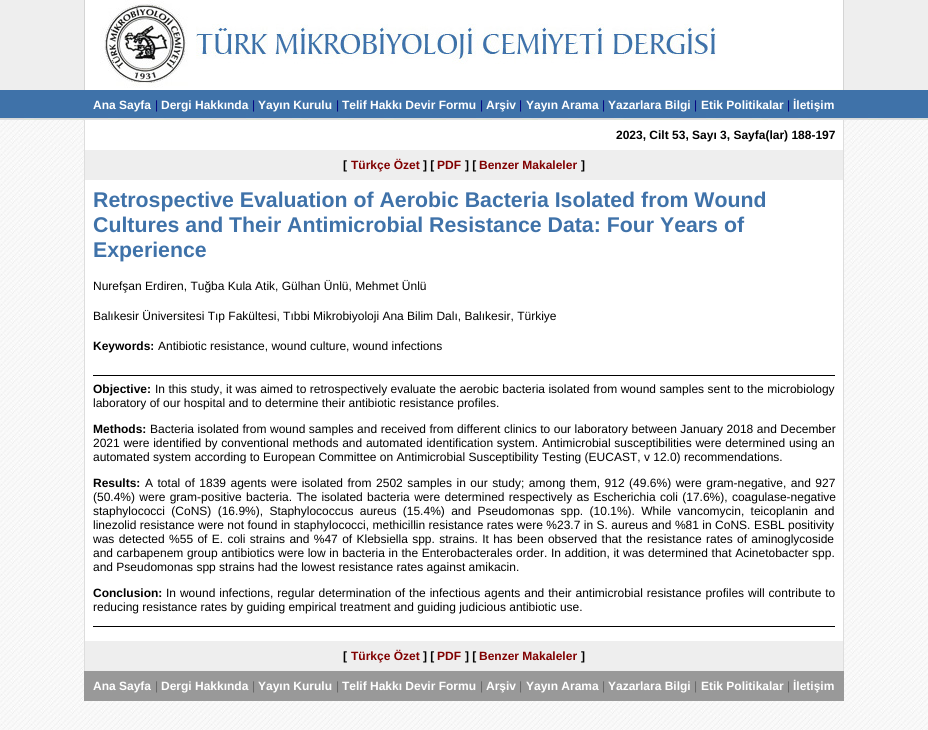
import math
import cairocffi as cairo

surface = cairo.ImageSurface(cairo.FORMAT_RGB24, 928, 730)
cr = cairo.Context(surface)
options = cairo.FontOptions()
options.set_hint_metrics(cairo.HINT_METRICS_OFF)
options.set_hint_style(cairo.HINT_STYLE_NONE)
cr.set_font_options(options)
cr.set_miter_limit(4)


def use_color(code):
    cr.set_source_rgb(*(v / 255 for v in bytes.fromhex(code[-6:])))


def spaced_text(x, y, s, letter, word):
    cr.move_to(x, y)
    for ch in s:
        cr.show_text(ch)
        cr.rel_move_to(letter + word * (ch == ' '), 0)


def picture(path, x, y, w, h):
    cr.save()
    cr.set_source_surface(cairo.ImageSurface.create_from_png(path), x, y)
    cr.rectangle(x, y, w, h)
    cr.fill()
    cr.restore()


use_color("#ffffff")
cr.paint()
picture("img1.png", 0, 120, 928, 610)
use_color("#eeeeee")
cr.rectangle(0, 0, 928, 90)
cr.fill()
picture("img2.png", 84, 0, 760, 90)
picture("img3.png", 0, 90, 84, 30)
picture("img4.png", 84, 90, 760, 30)
cr.select_font_face("Liberation Sans", cairo.FONT_SLANT_NORMAL, cairo.FONT_WEIGHT_BOLD)
cr.set_font_size(12)
use_color("#ffffff")
cr.move_to(93, 109)
cr.show_text("Ana Sayfa")
cr.select_font_face("Liberation Sans")
use_color("#000080")
cr.move_to(155, 109)
cr.show_text("|")
cr.select_font_face("Liberation Sans", cairo.FONT_SLANT_NORMAL, cairo.FONT_WEIGHT_BOLD)
use_color("#ffffff")
cr.move_to(161, 109)
cr.show_text("Dergi Hakkında")
cr.select_font_face("Liberation Sans")
use_color("#000080")
cr.move_to(252, 109)
cr.show_text("|")
cr.select_font_face("Liberation Sans", cairo.FONT_SLANT_NORMAL, cairo.FONT_WEIGHT_BOLD)
use_color("#ffffff")
cr.move_to(258, 109)
cr.show_text("Yayın Kurulu")
cr.select_font_face("Liberation Sans")
use_color("#000080")
cr.move_to(336, 109)
cr.show_text("|")
cr.select_font_face("Liberation Sans", cairo.FONT_SLANT_NORMAL, cairo.FONT_WEIGHT_BOLD)
use_color("#ffffff")
cr.move_to(342, 109)
cr.show_text("Telif Hakkı Devir Formu")
cr.select_font_face("Liberation Sans")
use_color("#000080")
cr.move_to(480, 109)
cr.show_text("|")
cr.select_font_face("Liberation Sans", cairo.FONT_SLANT_NORMAL, cairo.FONT_WEIGHT_BOLD)
use_color("#ffffff")
cr.move_to(486, 109)
cr.show_text("Arşiv")
cr.select_font_face("Liberation Sans")
use_color("#000080")
cr.move_to(519, 109)
cr.show_text("|")
cr.select_font_face("Liberation Sans", cairo.FONT_SLANT_NORMAL, cairo.FONT_WEIGHT_BOLD)
use_color("#ffffff")
cr.move_to(526, 109)
cr.show_text("Yayın Arama")
cr.select_font_face("Liberation Sans")
use_color("#000080")
cr.move_to(602, 109)
cr.show_text("|")
cr.select_font_face("Liberation Sans", cairo.FONT_SLANT_NORMAL, cairo.FONT_WEIGHT_BOLD)
use_color("#ffffff")
cr.move_to(608, 109)
cr.show_text("Yazarlara Bilgi")
cr.select_font_face("Liberation Sans")
use_color("#000080")
cr.move_to(694, 109)
cr.show_text("|")
cr.select_font_face("Liberation Sans", cairo.FONT_SLANT_NORMAL, cairo.FONT_WEIGHT_BOLD)
use_color("#ffffff")
cr.move_to(701, 109)
cr.show_text("Etik Politikalar")
cr.select_font_face("Liberation Sans")
use_color("#000080")
cr.move_to(787, 109)
cr.show_text("|")
cr.select_font_face("Liberation Sans", cairo.FONT_SLANT_NORMAL, cairo.FONT_WEIGHT_BOLD)
use_color("#ffffff")
cr.move_to(793, 109)
cr.show_text("İletişim")
picture("img3.png", 844, 90, 84, 30)
cr.rectangle(85, 120, 758, 521)
cr.fill()
use_color("#dddddd")
cr.rectangle(843, 120, 1, 551)
cr.fill()
cr.rectangle(84, 120, 1, 551)
cr.fill()
use_color("#000000")
cr.move_to(616, 139)
cr.show_text("2023, Cilt 53, Sayı 3, Sayfa(lar) 188-197")
use_color("#eeeeee")
cr.rectangle(85, 150, 758, 30)
cr.fill()
use_color("#000000")
cr.move_to(343, 169)
cr.show_text("[")
use_color("#800000")
cr.move_to(351, 169)
cr.show_text("Türkçe Özet")
use_color("#000000")
cr.move_to(423, 169)
cr.show_text("] [")
use_color("#800000")
cr.move_to(437, 169)
cr.show_text("PDF")
use_color("#000000")
cr.move_to(465, 169)
cr.show_text("] [")
use_color("#800000")
cr.move_to(479, 169)
cr.show_text("Benzer Makaleler")
use_color("#000000")
cr.move_to(581, 169)
cr.show_text("]")
cr.set_font_size(21.3)
use_color("#3f72a9")
cr.move_to(93, 207)
cr.show_text("Retrospective Evaluation of Aerobic Bacteria Isolated from Wound")
cr.move_to(93, 232)
cr.show_text("Cultures and Their Antimicrobial Resistance Data: Four Years of")
cr.move_to(93, 257)
cr.show_text("Experience")
cr.select_font_face("Liberation Sans")
cr.set_font_size(12)
use_color("#000000")
cr.move_to(93, 290)
cr.show_text("Nurefşan Erdiren, Tuğba Kula Atik, Gülhan Ünlü, Mehmet Ünlü")
cr.move_to(93, 320)
cr.show_text("Balıkesir Üniversitesi Tıp Fakültesi, Tıbbi Mikrobiyoloji Ana Bilim Dalı, Balıkesir, Türkiye")
cr.select_font_face("Liberation Sans", cairo.FONT_SLANT_NORMAL, cairo.FONT_WEIGHT_BOLD)
cr.move_to(93, 350)
cr.show_text("Keywords:")
cr.select_font_face("Liberation Sans")
cr.move_to(158, 350)
cr.show_text("Antibiotic resistance, wound culture, wound infections")
cr.rectangle(93, 375, 742, 1)
cr.fill()
cr.select_font_face("Liberation Sans", cairo.FONT_SLANT_NORMAL, cairo.FONT_WEIGHT_BOLD)
cr.move_to(93, 393)
cr.show_text("Objective:")
cr.select_font_face("Liberation Sans")
spaced_text(155, 393, "In this study, it was aimed to retrospectively evaluate the aerobic bacteria isolated from wound samples sent to the microbiology", 0, 0.1)
cr.move_to(93, 407)
cr.show_text("laboratory of our hospital and to determine their antibiotic resistance profiles.")
cr.select_font_face("Liberation Sans", cairo.FONT_SLANT_NORMAL, cairo.FONT_WEIGHT_BOLD)
cr.move_to(93, 433)
cr.show_text("Methods:")
cr.select_font_face("Liberation Sans")
spaced_text(150, 433, "Bacteria isolated from wound samples and received from different clinics to our laboratory between January 2018 and December", 0, 0.2)
spaced_text(93, 447, "2021 were identified by conventional methods and automated identification system. Antimicrobial susceptibilities were determined using an", 0, 0.4)
cr.move_to(93, 461)
cr.show_text("automated system according to European Committee on Antimicrobial Susceptibility Testing (EUCAST, v 12.0) recommendations.")
cr.select_font_face("Liberation Sans", cairo.FONT_SLANT_NORMAL, cairo.FONT_WEIGHT_BOLD)
cr.move_to(93, 487)
cr.show_text("Results:")
cr.select_font_face("Liberation Sans")
spaced_text(145, 487, "A total of 1839 agents were isolated from 2502 samples in our study; among them, 912 (49.6%) were gram-negative, and 927", 0, 1.2)
spaced_text(93, 501, "(50.4%) were gram-positive bacteria. The isolated bacteria were determined respectively as Escherichia coli (17.6%), coagulase-negative", 0, 1)
spaced_text(93, 515, "staphylococci (CoNS) (16.9%), Staphylococcus aureus (15.4%) and Pseudomonas spp. (10.1%). While vancomycin, teicoplanin and", 0, 3)
spaced_text(93, 529, "linezolid resistance were not found in staphylococci, methicillin resistance rates were %23.7 in S. aureus and %81 in CoNS. ESBL positivity", 0, 0.1)
spaced_text(93, 543, "was detected %55 of E. coli strains and %47 of Klebsiella spp. strains. It has been observed that the resistance rates of aminoglycoside", 0, 1)
spaced_text(93, 557, "and carbapenem group antibiotics were low in bacteria in the Enterobacterales order. In addition, it was determined that Acinetobacter spp.", 0, 0.25)
cr.move_to(93, 571)
cr.show_text("and Pseudomonas spp strains had the lowest resistance rates against amikacin.")
cr.select_font_face("Liberation Sans", cairo.FONT_SLANT_NORMAL, cairo.FONT_WEIGHT_BOLD)
cr.move_to(93, 597)
cr.show_text("Conclusion:")
cr.select_font_face("Liberation Sans")
spaced_text(166, 597, "In wound infections, regular determination of the infectious agents and their antimicrobial resistance profiles will contribute to", 0, 0.6)
cr.move_to(93, 611)
cr.show_text("reducing resistance rates by guiding empirical treatment and guiding judicious antibiotic use.")
cr.rectangle(93, 626, 742, 1)
cr.fill()
use_color("#eeeeee")
cr.rectangle(85, 641, 758, 30)
cr.fill()
cr.select_font_face("Liberation Sans", cairo.FONT_SLANT_NORMAL, cairo.FONT_WEIGHT_BOLD)
use_color("#000000")
cr.move_to(343, 660)
cr.show_text("[")
use_color("#800000")
cr.move_to(351, 660)
cr.show_text("Türkçe Özet")
use_color("#000000")
cr.move_to(423, 660)
cr.show_text("] [")
use_color("#800000")
cr.move_to(437, 660)
cr.show_text("PDF")
use_color("#000000")
cr.move_to(465, 660)
cr.show_text("] [")
use_color("#800000")
cr.move_to(479, 660)
cr.show_text("Benzer Makaleler")
use_color("#000000")
cr.move_to(581, 660)
cr.show_text("]")
use_color("#999999")
cr.rectangle(84, 671, 760, 30)
cr.fill()
use_color("#ffffff")
cr.move_to(93, 690)
cr.show_text("Ana Sayfa")
cr.select_font_face("Liberation Sans")
use_color("#666666")
cr.move_to(155, 690)
cr.show_text("|")
cr.select_font_face("Liberation Sans", cairo.FONT_SLANT_NORMAL, cairo.FONT_WEIGHT_BOLD)
use_color("#ffffff")
cr.move_to(161, 690)
cr.show_text("Dergi Hakkında")
cr.select_font_face("Liberation Sans")
use_color("#666666")
cr.move_to(252, 690)
cr.show_text("|")
cr.select_font_face("Liberation Sans", cairo.FONT_SLANT_NORMAL, cairo.FONT_WEIGHT_BOLD)
use_color("#ffffff")
cr.move_to(258, 690)
cr.show_text("Yayın Kurulu")
cr.select_font_face("Liberation Sans")
use_color("#666666")
cr.move_to(336, 690)
cr.show_text("|")
cr.select_font_face("Liberation Sans", cairo.FONT_SLANT_NORMAL, cairo.FONT_WEIGHT_BOLD)
use_color("#ffffff")
cr.move_to(342, 690)
cr.show_text("Telif Hakkı Devir Formu")
cr.select_font_face("Liberation Sans")
use_color("#666666")
cr.move_to(480, 690)
cr.show_text("|")
cr.select_font_face("Liberation Sans", cairo.FONT_SLANT_NORMAL, cairo.FONT_WEIGHT_BOLD)
use_color("#ffffff")
cr.move_to(486, 690)
cr.show_text("Arşiv")
cr.select_font_face("Liberation Sans")
use_color("#666666")
cr.move_to(519, 690)
cr.show_text("|")
cr.select_font_face("Liberation Sans", cairo.FONT_SLANT_NORMAL, cairo.FONT_WEIGHT_BOLD)
use_color("#ffffff")
cr.move_to(526, 690)
cr.show_text("Yayın Arama")
cr.select_font_face("Liberation Sans")
use_color("#666666")
cr.move_to(602, 690)
cr.show_text("|")
cr.select_font_face("Liberation Sans", cairo.FONT_SLANT_NORMAL, cairo.FONT_WEIGHT_BOLD)
use_color("#ffffff")
cr.move_to(608, 690)
cr.show_text("Yazarlara Bilgi")
cr.select_font_face("Liberation Sans")
use_color("#666666")
cr.move_to(694, 690)
cr.show_text("|")
cr.select_font_face("Liberation Sans", cairo.FONT_SLANT_NORMAL, cairo.FONT_WEIGHT_BOLD)
use_color("#ffffff")
cr.move_to(701, 690)
cr.show_text("Etik Politikalar")
cr.select_font_face("Liberation Sans")
use_color("#666666")
cr.move_to(787, 690)
cr.show_text("|")
cr.select_font_face("Liberation Sans", cairo.FONT_SLANT_NORMAL, cairo.FONT_WEIGHT_BOLD)
use_color("#ffffff")
cr.move_to(793, 690)
cr.show_text("İletişim")
surface.write_to_png("result.png")
